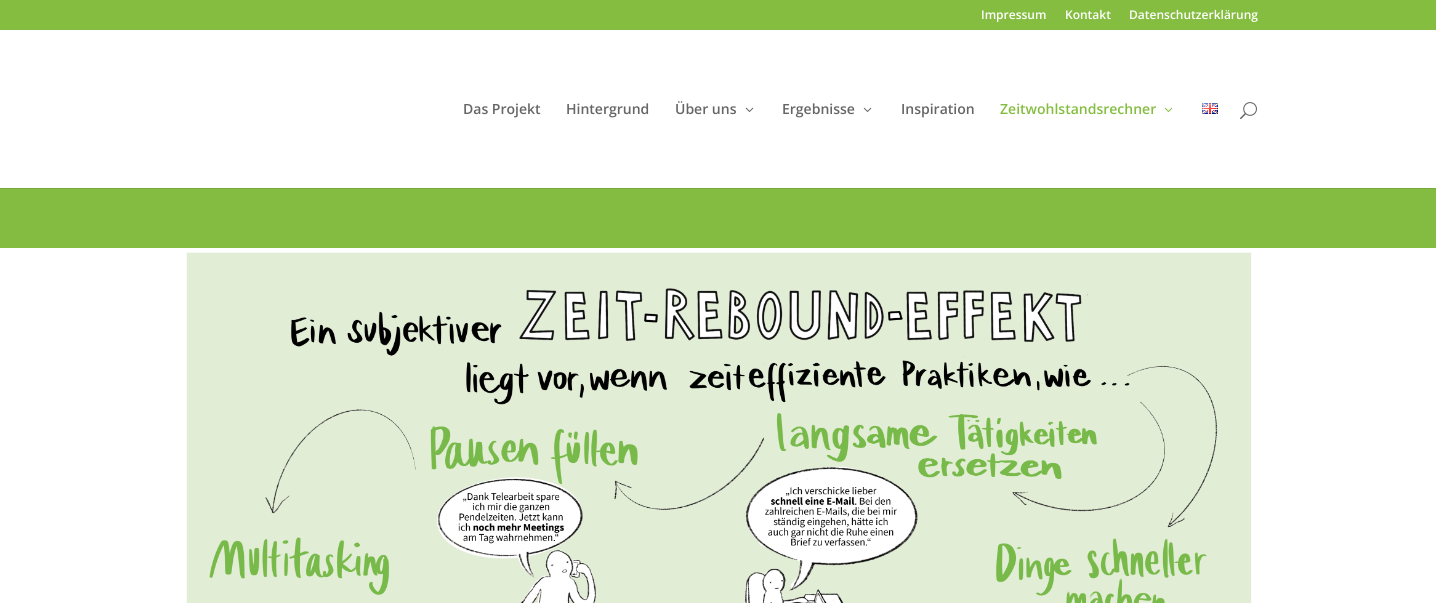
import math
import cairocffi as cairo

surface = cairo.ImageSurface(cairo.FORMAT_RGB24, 1436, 603)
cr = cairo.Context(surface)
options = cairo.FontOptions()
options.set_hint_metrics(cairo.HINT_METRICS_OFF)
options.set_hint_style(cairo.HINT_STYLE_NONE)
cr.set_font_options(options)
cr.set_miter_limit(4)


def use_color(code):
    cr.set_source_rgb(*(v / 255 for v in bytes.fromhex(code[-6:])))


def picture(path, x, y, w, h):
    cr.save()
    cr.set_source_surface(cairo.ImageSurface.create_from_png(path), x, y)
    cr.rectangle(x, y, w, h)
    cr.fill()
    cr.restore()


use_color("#ffffff")
cr.paint()
use_color("#85bd41")
cr.rectangle(0, 0, 1436, 30)
cr.fill()
cr.select_font_face("Open Sans SemiBold")
cr.set_font_size(12)
use_color("#ffffff")
cr.move_to(981, 19)
cr.show_text("Impressum")
cr.move_to(1065, 19)
cr.show_text("Kontakt")
cr.move_to(1129, 19)
cr.show_text("Datenschutzerklärung")
use_color("#77a93b")
cr.rectangle(0, 188, 1436, 1)
cr.fill()
cr.set_font_size(14)
use_color("#666666")
cr.move_to(463, 114)
cr.show_text("Das Projekt")
cr.move_to(566, 114)
cr.show_text("Hintergrund")
cr.move_to(675, 114)
cr.show_text("Über uns")
picture("img1.png", 745, 107, 9, 5)
cr.move_to(782, 114)
cr.show_text("Ergebnisse")
picture("img1.png", 863, 107, 9, 5)
cr.move_to(901, 114)
cr.show_text("Inspiration")
use_color("#85bd41")
cr.move_to(1000, 114)
cr.show_text("Zeitwohlstandsrechner")
picture("img2.png", 1164, 107, 9, 5)
picture("img3.png", 1202, 103, 16, 11)
picture("img4.png", 1240, 102, 17, 18)
use_color("#84bc41")
cr.rectangle(0, 189, 1436, 59)
cr.fill()
picture("img5.png", 186, 252, 1066, 351)
surface.write_to_png("result.png")
